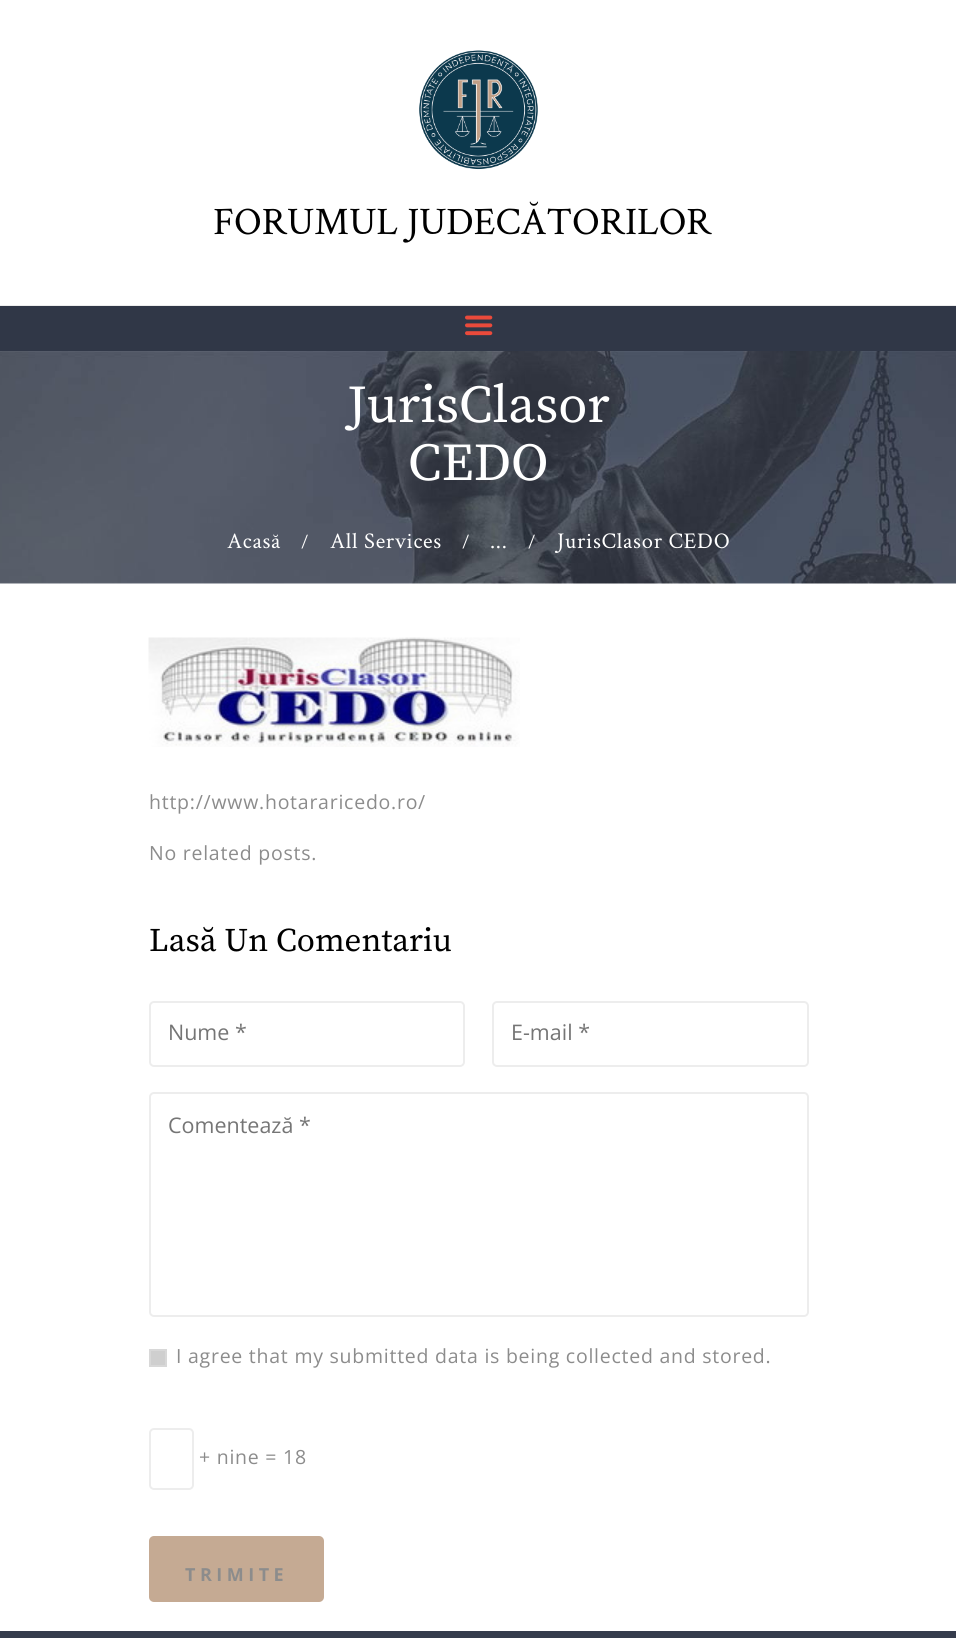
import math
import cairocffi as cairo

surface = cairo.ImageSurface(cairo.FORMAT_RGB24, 956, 1638)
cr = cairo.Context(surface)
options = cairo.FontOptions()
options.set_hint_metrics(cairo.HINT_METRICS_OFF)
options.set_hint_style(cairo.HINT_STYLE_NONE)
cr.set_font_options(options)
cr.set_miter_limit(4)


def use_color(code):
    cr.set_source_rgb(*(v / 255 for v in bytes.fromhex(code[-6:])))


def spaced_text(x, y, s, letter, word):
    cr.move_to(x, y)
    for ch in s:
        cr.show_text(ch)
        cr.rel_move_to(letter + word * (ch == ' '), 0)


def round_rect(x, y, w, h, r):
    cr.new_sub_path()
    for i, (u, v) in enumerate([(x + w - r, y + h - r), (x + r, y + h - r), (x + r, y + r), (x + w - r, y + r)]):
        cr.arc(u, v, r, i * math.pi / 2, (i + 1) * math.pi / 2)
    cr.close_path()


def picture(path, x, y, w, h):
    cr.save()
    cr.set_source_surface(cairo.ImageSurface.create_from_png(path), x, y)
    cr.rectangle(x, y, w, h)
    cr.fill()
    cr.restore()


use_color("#ffffff")
cr.paint()
use_color("#ededed")
cr.rectangle(0, 305, 956, 1)
cr.fill()
picture("img1.png", 419, 50, 119, 120)
cr.select_font_face("Crimson Text")
cr.set_font_size(39)
use_color("#000000")
cr.move_to(213, 234)
cr.show_text("FORUMUL JUDECĂTORILOR")
use_color("#303747")
cr.rectangle(0, 306, 956, 45)
cr.fill()
picture("img2.png", 465, 315, 28, 21)
picture("img3.png", 0, 351, 956, 233)
cr.select_font_face("Source Serif Pro")
cr.set_font_size(53)
use_color("#ffffff")
cr.move_to(347, 422)
cr.show_text("JurisClasor")
cr.move_to(408, 480)
cr.show_text("CEDO")
cr.select_font_face("Crimson Text")
cr.set_font_size(22.5)
spaced_text(227, 548, "Acasă", 0.75, 0)
cr.set_font_size(18)
spaced_text(301, 548, "/", 0.75, 0)
cr.set_font_size(22.5)
spaced_text(330, 548, "All Services", 0.75, 0)
cr.set_font_size(18)
spaced_text(462, 548, "/", 0.75, 0)
cr.set_font_size(22.5)
spaced_text(490, 548, "...", 0.75, 0)
cr.set_font_size(18)
spaced_text(528, 548, "/", 0.75, 0)
cr.set_font_size(22.5)
spaced_text(557, 548, "JurisClasor CEDO", 0.75, 0)
picture("img4.png", 148, 637, 372, 110)
cr.select_font_face("Open Sans")
cr.set_font_size(19.5)
use_color("#8c8c8c")
spaced_text(149, 809, "http://www.hotararicedo.ro/", 0.75, 0)
spaced_text(149, 860, "No related posts.", 0.75, 0)
cr.select_font_face("Source Serif Pro")
cr.set_font_size(33)
use_color("#000000")
cr.move_to(149, 951)
cr.show_text("Lasă Un Comentariu")
round_rect(150, 1002, 314, 64, 4)
use_color("#ededed")
cr.stroke()
cr.select_font_face("Open Sans")
cr.set_font_size(21.5)
use_color("#757575")
cr.move_to(168, 1040)
cr.show_text("Nume *")
round_rect(493, 1002, 315, 64, 4)
use_color("#ededed")
cr.stroke()
use_color("#757575")
cr.move_to(511, 1040)
cr.show_text("E-mail *")
round_rect(150, 1093, 658, 223, 4)
use_color("#ededed")
cr.stroke()
use_color("#757575")
cr.move_to(168, 1133)
cr.show_text("Comentează *")
use_color("#cfcfcf")
cr.rectangle(150, 1350, 16, 16)
cr.fill_preserve()
use_color("#d8d8d8")
cr.stroke()
cr.set_font_size(19.5)
use_color("#8c8c8c")
spaced_text(176, 1363, "I agree that my submitted data is being collected and stored.", 0.75, 0)
round_rect(150, 1429, 43, 60, 4)
use_color("#ededed")
cr.stroke()
use_color("#8c8c8c")
spaced_text(199, 1464, "+ nine = 18", 0.75, 0)
use_color("#c5aa93")
round_rect(149, 1536, 175, 66, 5)
cr.fill()
cr.select_font_face("Open Sans", cairo.FONT_SLANT_NORMAL, cairo.FONT_WEIGHT_BOLD)
cr.set_font_size(18)
use_color("#8c8c8c")
spaced_text(185, 1581, "TRIMITE", 4.5, 0)
use_color("#353c4d")
cr.rectangle(0, 1631, 956, 7)
cr.fill()
surface.write_to_png("result.png")
